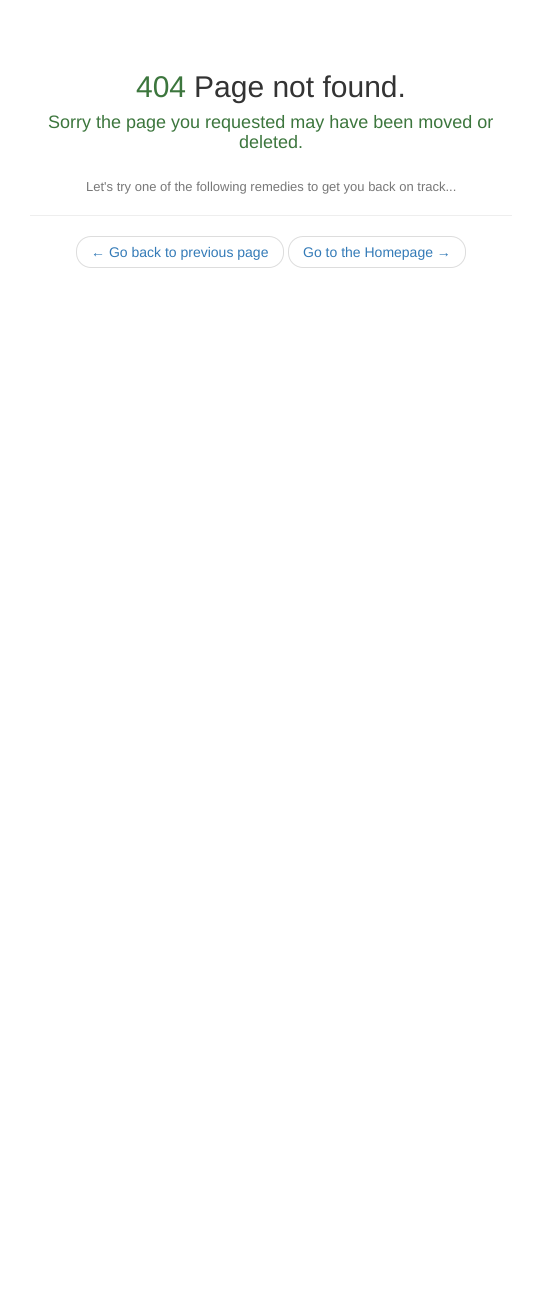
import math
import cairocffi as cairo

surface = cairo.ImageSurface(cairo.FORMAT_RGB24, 542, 1300)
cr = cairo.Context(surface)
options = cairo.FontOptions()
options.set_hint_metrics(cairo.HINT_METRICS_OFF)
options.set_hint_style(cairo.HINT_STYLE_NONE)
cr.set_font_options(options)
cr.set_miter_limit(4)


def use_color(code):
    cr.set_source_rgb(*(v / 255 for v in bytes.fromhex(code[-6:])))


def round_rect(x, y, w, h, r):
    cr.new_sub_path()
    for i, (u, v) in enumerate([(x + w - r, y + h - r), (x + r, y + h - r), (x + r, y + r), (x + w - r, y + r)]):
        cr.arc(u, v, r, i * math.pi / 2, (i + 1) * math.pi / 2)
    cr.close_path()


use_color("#ffffff")
cr.paint()
cr.select_font_face("Liberation Sans")
cr.set_font_size(30)
use_color("#3c763d")
cr.move_to(136, 97)
cr.show_text("404")
use_color("#333333")
cr.move_to(194, 97)
cr.show_text("Page not found.")
cr.set_font_size(18)
use_color("#3c763d")
cr.move_to(48, 128)
cr.show_text("Sorry the page you requested may have been moved or")
cr.move_to(239, 148)
cr.show_text("deleted.")
cr.set_font_size(13)
use_color("#777777")
cr.move_to(86, 191)
cr.show_text("Let's try one of the following remedies to get you back on track...")
use_color("#eeeeee")
cr.rectangle(30, 215, 482, 1)
cr.fill()
round_rect(76.5, 236.5, 207, 31, 14.5)
use_color("#dddddd")
cr.set_line_width(1)
cr.stroke()
cr.set_font_size(14)
use_color("#337ab7")
cr.move_to(91, 257)
cr.show_text("← Go back to previous page")
round_rect(288.5, 236.5, 177, 31, 14.5)
use_color("#dddddd")
cr.stroke()
use_color("#337ab7")
cr.move_to(303, 257)
cr.show_text("Go to the Homepage →")
surface.write_to_png("result.png")
